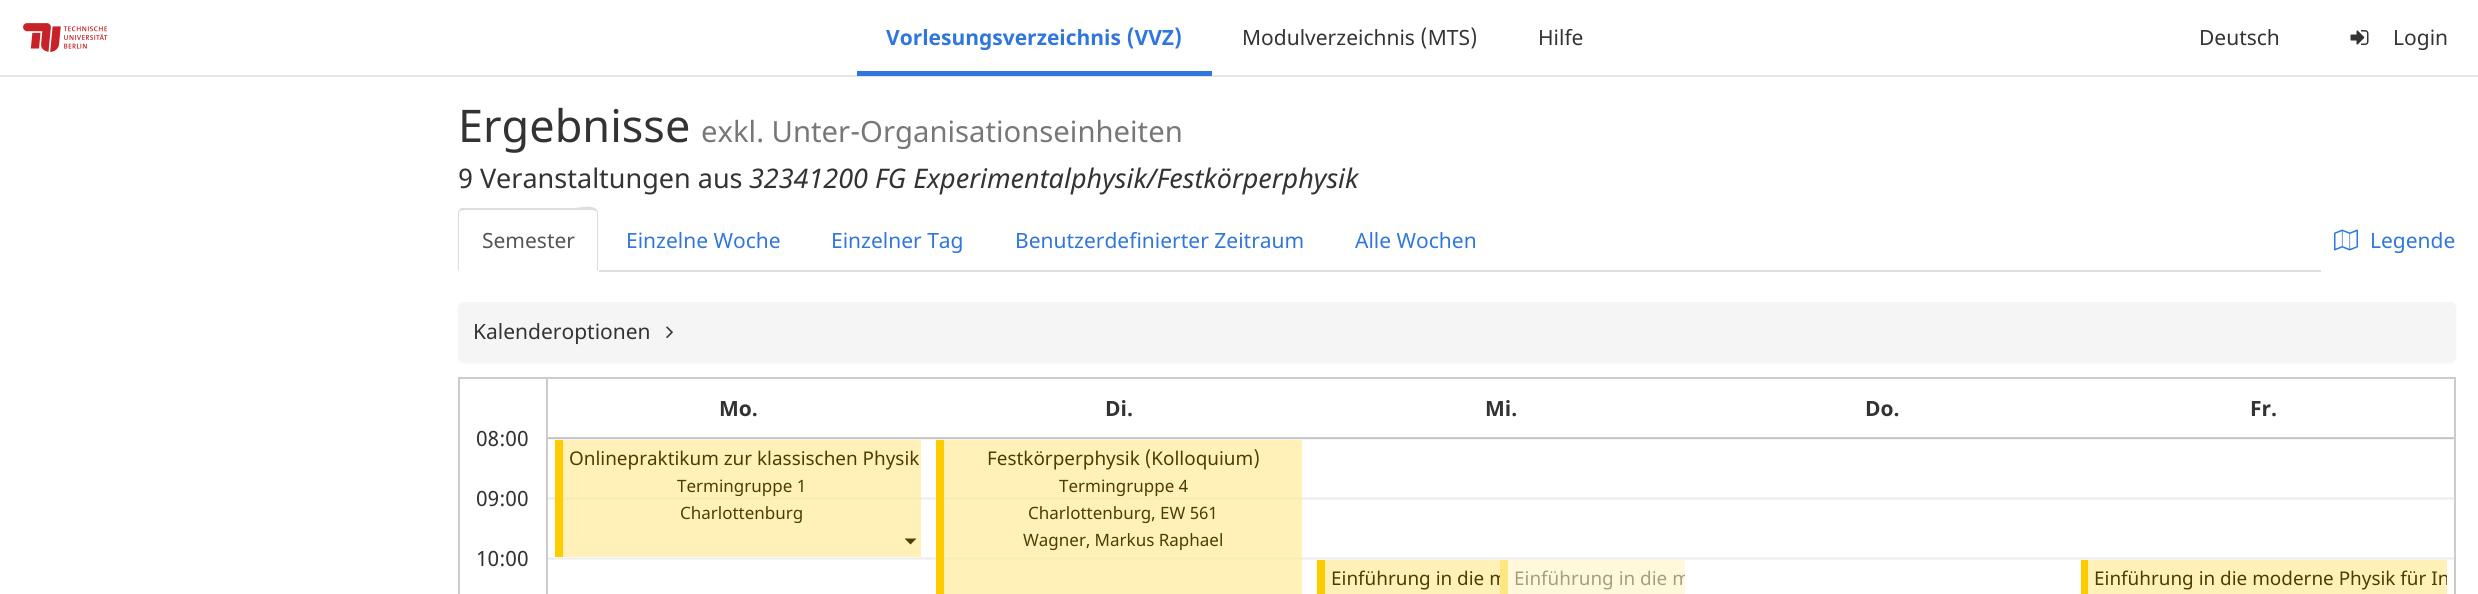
import math
import cairocffi as cairo

surface = cairo.ImageSurface(cairo.FORMAT_RGB24, 2478, 594)
cr = cairo.Context(surface)
options = cairo.FontOptions()
options.set_hint_metrics(cairo.HINT_METRICS_OFF)
options.set_hint_style(cairo.HINT_STYLE_NONE)
cr.set_font_options(options)
cr.set_miter_limit(4)


def use_color(code):
    cr.set_source_rgb(*(v / 255 for v in bytes.fromhex(code[-6:])))


def round_rect(x, y, w, h, r):
    cr.new_sub_path()
    for i, (u, v) in enumerate([(x + w - r, y + h - r), (x + r, y + h - r), (x + r, y + r), (x + w - r, y + r)]):
        cr.arc(u, v, r, i * math.pi / 2, (i + 1) * math.pi / 2)
    cr.close_path()


def shadow(x, y, w, h, r, blur, alpha):
    cr.push_group_with_content(cairo.CONTENT_ALPHA)
    cr.set_operator(cairo.OPERATOR_SOURCE)
    for i in range(15, -16, -2):
        e = blur * i / 6
        if min(w, h) + 2 * e > 0:
            cr.set_source_rgba(0, 0, 0, alpha * math.erfc((i - 1) / 8.5) / 2)
            round_rect(x - e, y - e, w + 2 * e, h + 2 * e, max(0, min(r + e + blur * .6, min(w, h) / 2 + e)))
            cr.fill()
    cr.mask(cr.pop_group())


def picture(path, x, y, w, h):
    cr.save()
    cr.set_source_surface(cairo.ImageSurface.create_from_png(path), x, y)
    cr.rectangle(x, y, w, h)
    cr.fill()
    cr.restore()


use_color("#ffffff")
cr.paint()
use_color("#f5f5f5")
cr.rectangle(1310, 559, 1144, 1)
cr.fill()
cr.rectangle(1310, 499, 1144, 1)
cr.fill()
cr.rectangle(548, 439, 1906, 1)
cr.fill()
use_color("#fff1b8")
cr.rectangle(944, 440, 358, 154)
cr.fill()
use_color("#f5f5f5")
cr.rectangle(548, 559, 762, 1)
cr.fill()
use_color("#fceeb5")
cr.rectangle(936, 559, 366, 1)
cr.fill()
use_color("#f5f5f5")
cr.rectangle(929, 499, 381, 1)
cr.fill()
use_color("#fceeb5")
cr.rectangle(936, 499, 366, 1)
cr.fill()
use_color("#fff1b8")
cr.rectangle(563, 440, 358, 117)
cr.fill()
use_color("#f5f5f5")
cr.rectangle(548, 499, 381, 1)
cr.fill()
use_color("#fceeb5")
cr.rectangle(555, 499, 366, 1)
cr.fill()
picture("img1.png", 23, 23, 85, 29)
use_color("#e5e5e5")
cr.rectangle(0, 75, 2478, 2)
cr.fill()
use_color("#2f76df")
cr.rectangle(857, 71, 355, 5)
cr.fill()
cr.select_font_face("Noto Sans", cairo.FONT_SLANT_NORMAL, cairo.FONT_WEIGHT_BOLD)
cr.set_font_size(21)
cr.move_to(886, 45)
cr.show_text("Vorlesungsverzeichnis (VVZ)")
cr.select_font_face("Noto Sans")
use_color("#333333")
cr.move_to(1242, 45)
cr.show_text("Modulverzeichnis (MTS)")
cr.move_to(1538, 45)
cr.show_text("Hilfe")
cr.move_to(2199, 45)
cr.show_text("Deutsch")
picture("img2.png", 2350, 30, 19, 15)
cr.move_to(2393, 45)
cr.show_text("Login")
cr.set_font_size(45)
cr.move_to(458, 142)
cr.show_text("Ergebnisse")
cr.set_font_size(29.25)
use_color("#777777")
cr.move_to(701, 142)
cr.show_text("exkl. Unter-Organisationseinheiten")
cr.set_font_size(27)
use_color("#333333")
cr.move_to(458, 188)
cr.show_text("9 Veranstaltungen aus")
cr.select_font_face("Noto Sans", cairo.FONT_SLANT_ITALIC)
cr.move_to(749, 188)
cr.show_text("32341200 FG Experimentalphysik/Festkörperphysik")
use_color("#dddddd")
cr.rectangle(599, 270, 1722, 2)
cr.fill()
cr.new_path()
cr.move_to(464, 210)
cr.curve_to(462, 210, 461, 211, 460, 211)
cr.line_to(459, 210)
cr.line_to(461, 208)
cr.line_to(572, 208)
cr.curve_to(581, 208, 592, 204, 597, 210)
cr.line_to(596, 211)
cr.curve_to(595, 211, 594, 210, 592, 210)
cr.close_path()
cr.fill()
cr.new_path()
cr.move_to(597, 210)
cr.curve_to(598, 211, 598, 213, 598, 214)
cr.line_to(598, 271)
cr.line_to(597, 270)
cr.line_to(597, 213)
cr.line_to(596, 211)
cr.close_path()
cr.fill()
cr.new_path()
cr.move_to(458, 271)
cr.line_to(458, 214)
cr.curve_to(458, 213, 458, 211, 459, 210)
cr.line_to(460, 211)
cr.line_to(459, 213)
cr.line_to(459, 270)
cr.close_path()
cr.fill()
cr.select_font_face("Noto Sans")
cr.set_font_size(21)
use_color("#555555")
cr.move_to(482, 248)
cr.show_text("Semester")
use_color("#2f76df")
cr.move_to(626, 248)
cr.show_text("Einzelne Woche")
cr.move_to(831, 248)
cr.show_text("Einzelner Tag")
cr.move_to(1015, 248)
cr.show_text("Benutzerdefinierter Zeitraum")
cr.move_to(1355, 248)
cr.show_text("Alle Wochen")
picture("img3.png", 2334, 229, 24, 22)
cr.move_to(2370, 248)
cr.show_text("Legende")
use_color("#000000")
shadow(458, 303, 1998, 60, 6, 1, 0.05)
use_color("#f5f5f5")
round_rect(458, 302, 1998, 60, 6)
cr.fill()
use_color("#333333")
cr.move_to(473, 339)
cr.show_text("Kalenderoptionen")
picture("img4.png", 666, 326, 7, 12)
cr.rectangle(459, 378, 88, 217)
use_color("#cccccc")
cr.stroke()
use_color("#333333")
cr.move_to(476, 446)
cr.show_text("08:00")
cr.move_to(476, 506)
cr.show_text("09:00")
cr.move_to(476, 566)
cr.show_text("10:00")
use_color("#cccccc")
cr.rectangle(548, 377, 1908, 2)
cr.fill()
cr.rectangle(2454, 377, 2, 217)
cr.fill()
cr.rectangle(548, 437, 1906, 1)
cr.fill()
use_color("#c4c4c4")
cr.rectangle(548, 438, 1906, 1)
cr.fill()
cr.select_font_face("Noto Sans", cairo.FONT_SLANT_NORMAL, cairo.FONT_WEIGHT_BOLD)
use_color("#333333")
cr.move_to(719, 416)
cr.show_text("Mo.")
use_color("#f6f6f6")
cr.rectangle(548, 497, 1906, 1)
cr.fill()
use_color("#fceeb5")
cr.rectangle(555, 497, 366, 1)
cr.fill()
use_color("#ececec")
cr.rectangle(548, 498, 1906, 1)
cr.fill()
use_color("#f9ebb2")
cr.rectangle(555, 498, 366, 1)
cr.fill()
use_color("#f6f6f6")
cr.rectangle(548, 557, 1906, 1)
cr.fill()
use_color("#ececec")
cr.rectangle(548, 558, 1906, 1)
cr.fill()
use_color("#ffcc00")
cr.rectangle(555, 440, 8, 117)
cr.fill()
cr.select_font_face("Noto Sans")
cr.set_font_size(18.9)
use_color("#4d3d00")
cr.move_to(569, 465)
cr.show_text("Onlinepraktikum zur klassischen Physik")
cr.set_font_size(17)
cr.move_to(677, 492)
cr.show_text("Termingruppe 1")
cr.move_to(680, 519)
cr.show_text("Charlottenburg")
cr.new_path()
cr.move_to(904.5, 538.5)
cr.line_to(916.5, 538.5)
cr.line_to(910.5, 544.5)
cr.close_path()
cr.fill()
cr.select_font_face("Noto Sans", cairo.FONT_SLANT_NORMAL, cairo.FONT_WEIGHT_BOLD)
cr.set_font_size(21)
use_color("#333333")
cr.move_to(1105, 416)
cr.show_text("Di.")
use_color("#fceeb5")
cr.rectangle(936, 497, 366, 1)
cr.fill()
use_color("#f9ebb2")
cr.rectangle(936, 498, 366, 1)
cr.fill()
use_color("#fceeb5")
cr.rectangle(936, 557, 366, 1)
cr.fill()
use_color("#f9ebb2")
cr.rectangle(936, 558, 366, 1)
cr.fill()
use_color("#ffcc00")
cr.rectangle(936, 440, 8, 154)
cr.fill()
cr.select_font_face("Noto Sans")
cr.set_font_size(18.9)
use_color("#4d3d00")
cr.move_to(987, 465)
cr.show_text("Festkörperphysik (Kolloquium)")
cr.set_font_size(17)
cr.move_to(1059, 492)
cr.show_text("Termingruppe 4")
cr.move_to(1028, 519)
cr.show_text("Charlottenburg, EW 561")
cr.move_to(1023, 546)
cr.show_text("Wagner, Markus Raphael")
cr.select_font_face("Noto Sans", cairo.FONT_SLANT_NORMAL, cairo.FONT_WEIGHT_BOLD)
cr.set_font_size(21)
use_color("#333333")
cr.move_to(1485, 416)
cr.show_text("Mi.")
use_color("#fff1b8")
cr.rectangle(1325, 560, 175, 34)
cr.fill()
use_color("#ffcc00")
cr.rectangle(1317, 560, 8, 34)
cr.fill()
cr.select_font_face("Noto Sans")
cr.set_font_size(18.9)
use_color("#4d3d00")
cr.move_to(1331, 585)
cr.show_text("Einführung in die m")
use_color("#fff8db")
cr.rectangle(1508, 560, 177, 34)
cr.fill()
use_color("#ffe680")
cr.rectangle(1500, 560, 8, 34)
cr.fill()
cr.save()
cr.rectangle(1508, 560, 177, 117)
cr.clip()
use_color("#a69e80")
cr.move_to(1514, 585)
cr.show_text("Einführung in die m")
cr.restore()
cr.select_font_face("Noto Sans", cairo.FONT_SLANT_NORMAL, cairo.FONT_WEIGHT_BOLD)
cr.set_font_size(21)
use_color("#333333")
cr.move_to(1865, 416)
cr.show_text("Do.")
cr.move_to(2250, 416)
cr.show_text("Fr.")
use_color("#fff1b8")
cr.rectangle(2088, 560, 359, 34)
cr.fill()
use_color("#ffcc00")
cr.rectangle(2081, 560, 7, 34)
cr.fill()
cr.save()
cr.rectangle(2088, 560, 359, 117)
cr.clip()
cr.select_font_face("Noto Sans")
cr.set_font_size(18.9)
use_color("#4d3d00")
cr.move_to(2094, 585)
cr.show_text("Einführung in die moderne Physik für In")
cr.restore()
surface.write_to_png("result.png")
